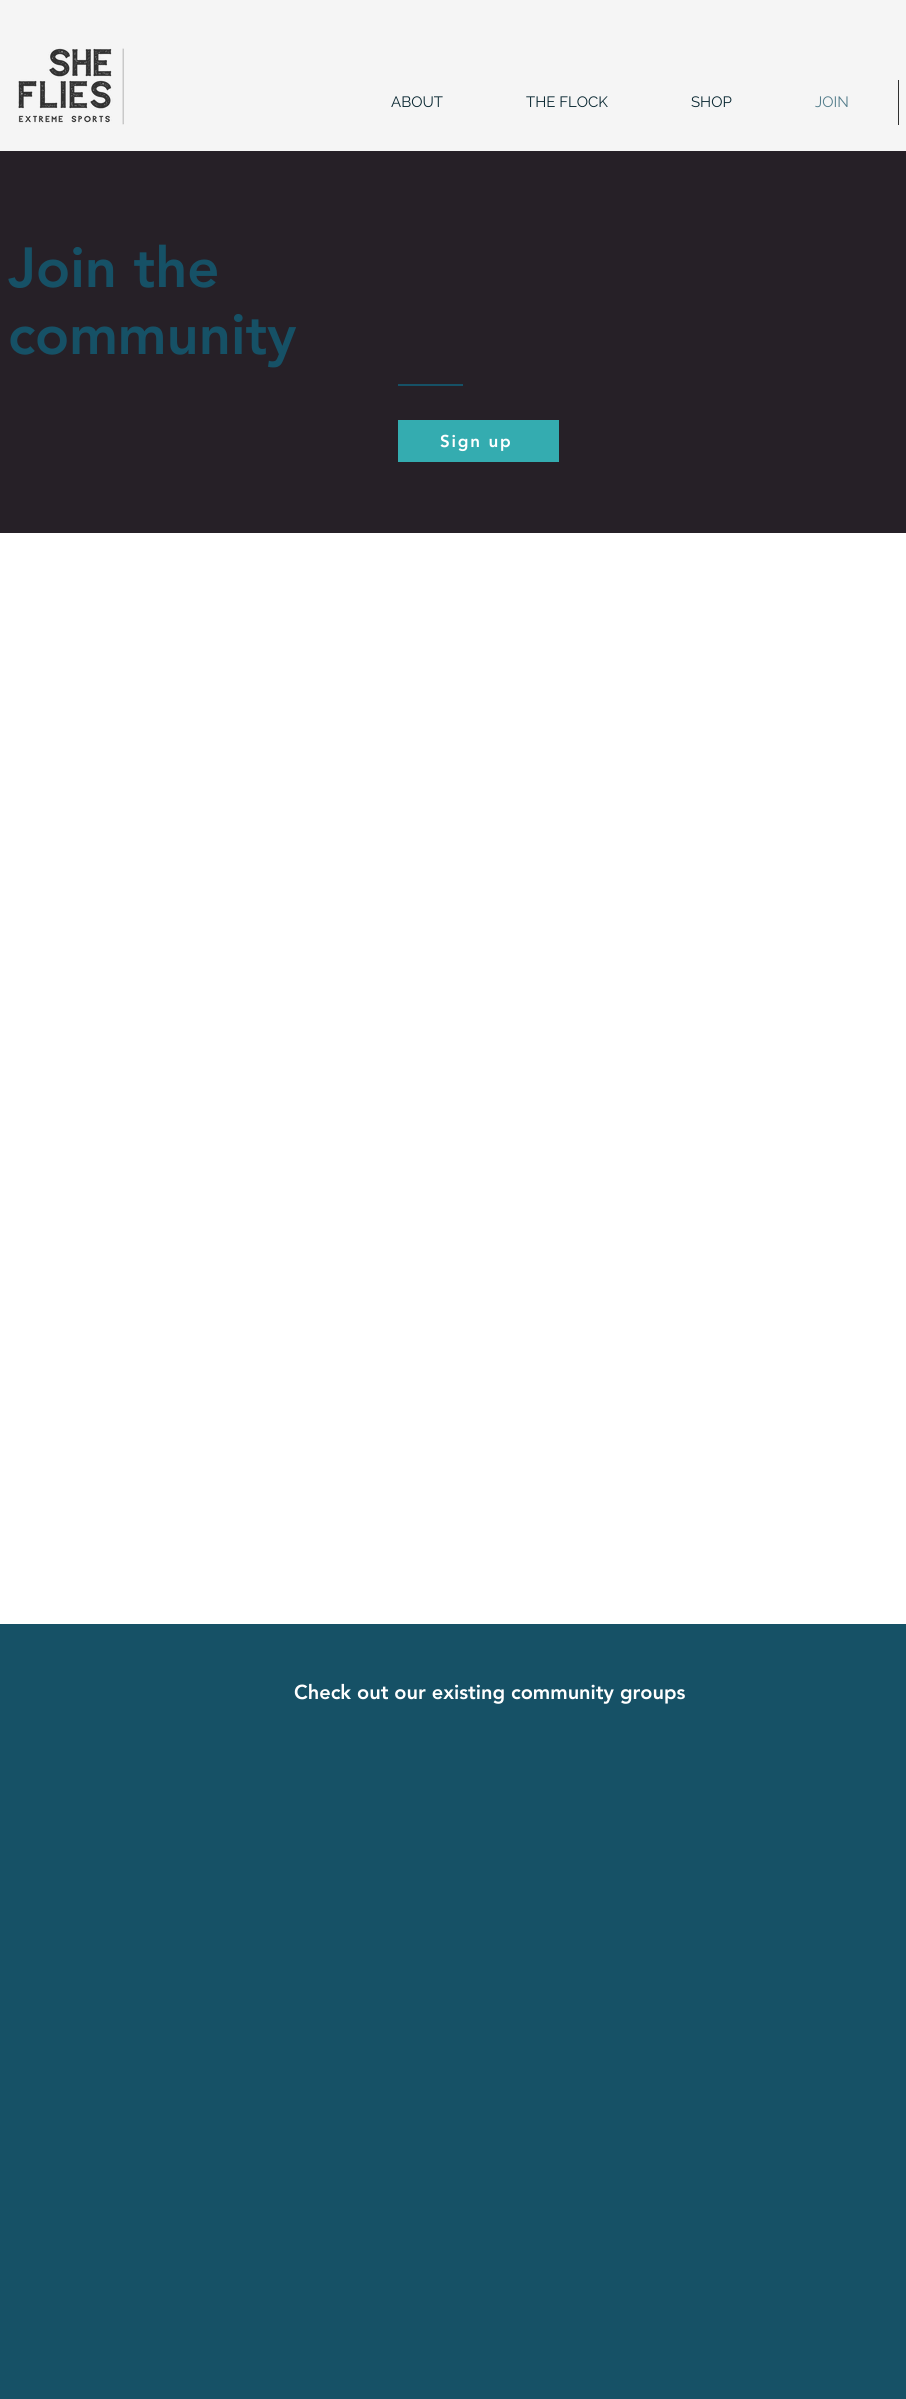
import math
import cairocffi as cairo

surface = cairo.ImageSurface(cairo.FORMAT_RGB24, 906, 2399)
cr = cairo.Context(surface)
options = cairo.FontOptions()
options.set_hint_metrics(cairo.HINT_METRICS_OFF)
options.set_hint_style(cairo.HINT_STYLE_NONE)
cr.set_font_options(options)
cr.set_miter_limit(4)


def use_color(code):
    cr.set_source_rgb(*(v / 255 for v in bytes.fromhex(code[-6:])))


def spaced_text(x, y, s, letter, word):
    cr.move_to(x, y)
    for ch in s:
        cr.show_text(ch)
        cr.rel_move_to(letter + word * (ch == ' '), 0)


def picture(path, x, y, w, h):
    cr.save()
    cr.set_source_surface(cairo.ImageSurface.create_from_png(path), x, y)
    cr.rectangle(x, y, w, h)
    cr.fill()
    cr.restore()


use_color("#ffffff")
cr.paint()
use_color("#f5f5f5")
cr.rectangle(0, 0, 906, 151)
cr.fill()
picture("img1.png", 18, 48, 106, 77)
cr.select_font_face("Raleway")
cr.set_font_size(15)
use_color("#0b2933")
cr.move_to(391, 107)
cr.show_text("ABOUT")
cr.move_to(526, 107)
cr.show_text("THE FLOCK")
cr.move_to(691, 107)
cr.show_text("SHOP")
use_color("#557e8c")
cr.move_to(815, 107)
cr.show_text("JOIN")
use_color("#303030")
cr.rectangle(898, 80, 1, 45)
cr.fill()
use_color("#262027")
cr.rectangle(0, 151, 906, 382)
cr.fill()
cr.select_font_face("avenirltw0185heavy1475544 Black")
cr.set_font_size(56)
use_color("#165166")
cr.move_to(8, 287)
cr.show_text("Join the")
cr.move_to(8, 354)
cr.show_text("community")
cr.rectangle(398, 384, 65, 2)
cr.fill()
use_color("#34acb0")
cr.rectangle(398, 420, 161, 42)
cr.fill()
cr.set_font_size(17)
use_color("#ffffff")
spaced_text(440, 447, "Sign up", 1.75, 0)
use_color("#165166")
cr.rectangle(0, 1624, 906, 775)
cr.fill()
cr.set_font_size(20)
use_color("#ffffff")
cr.move_to(294, 1699)
cr.show_text("Check out our existing community groups")
surface.write_to_png("result.png")
